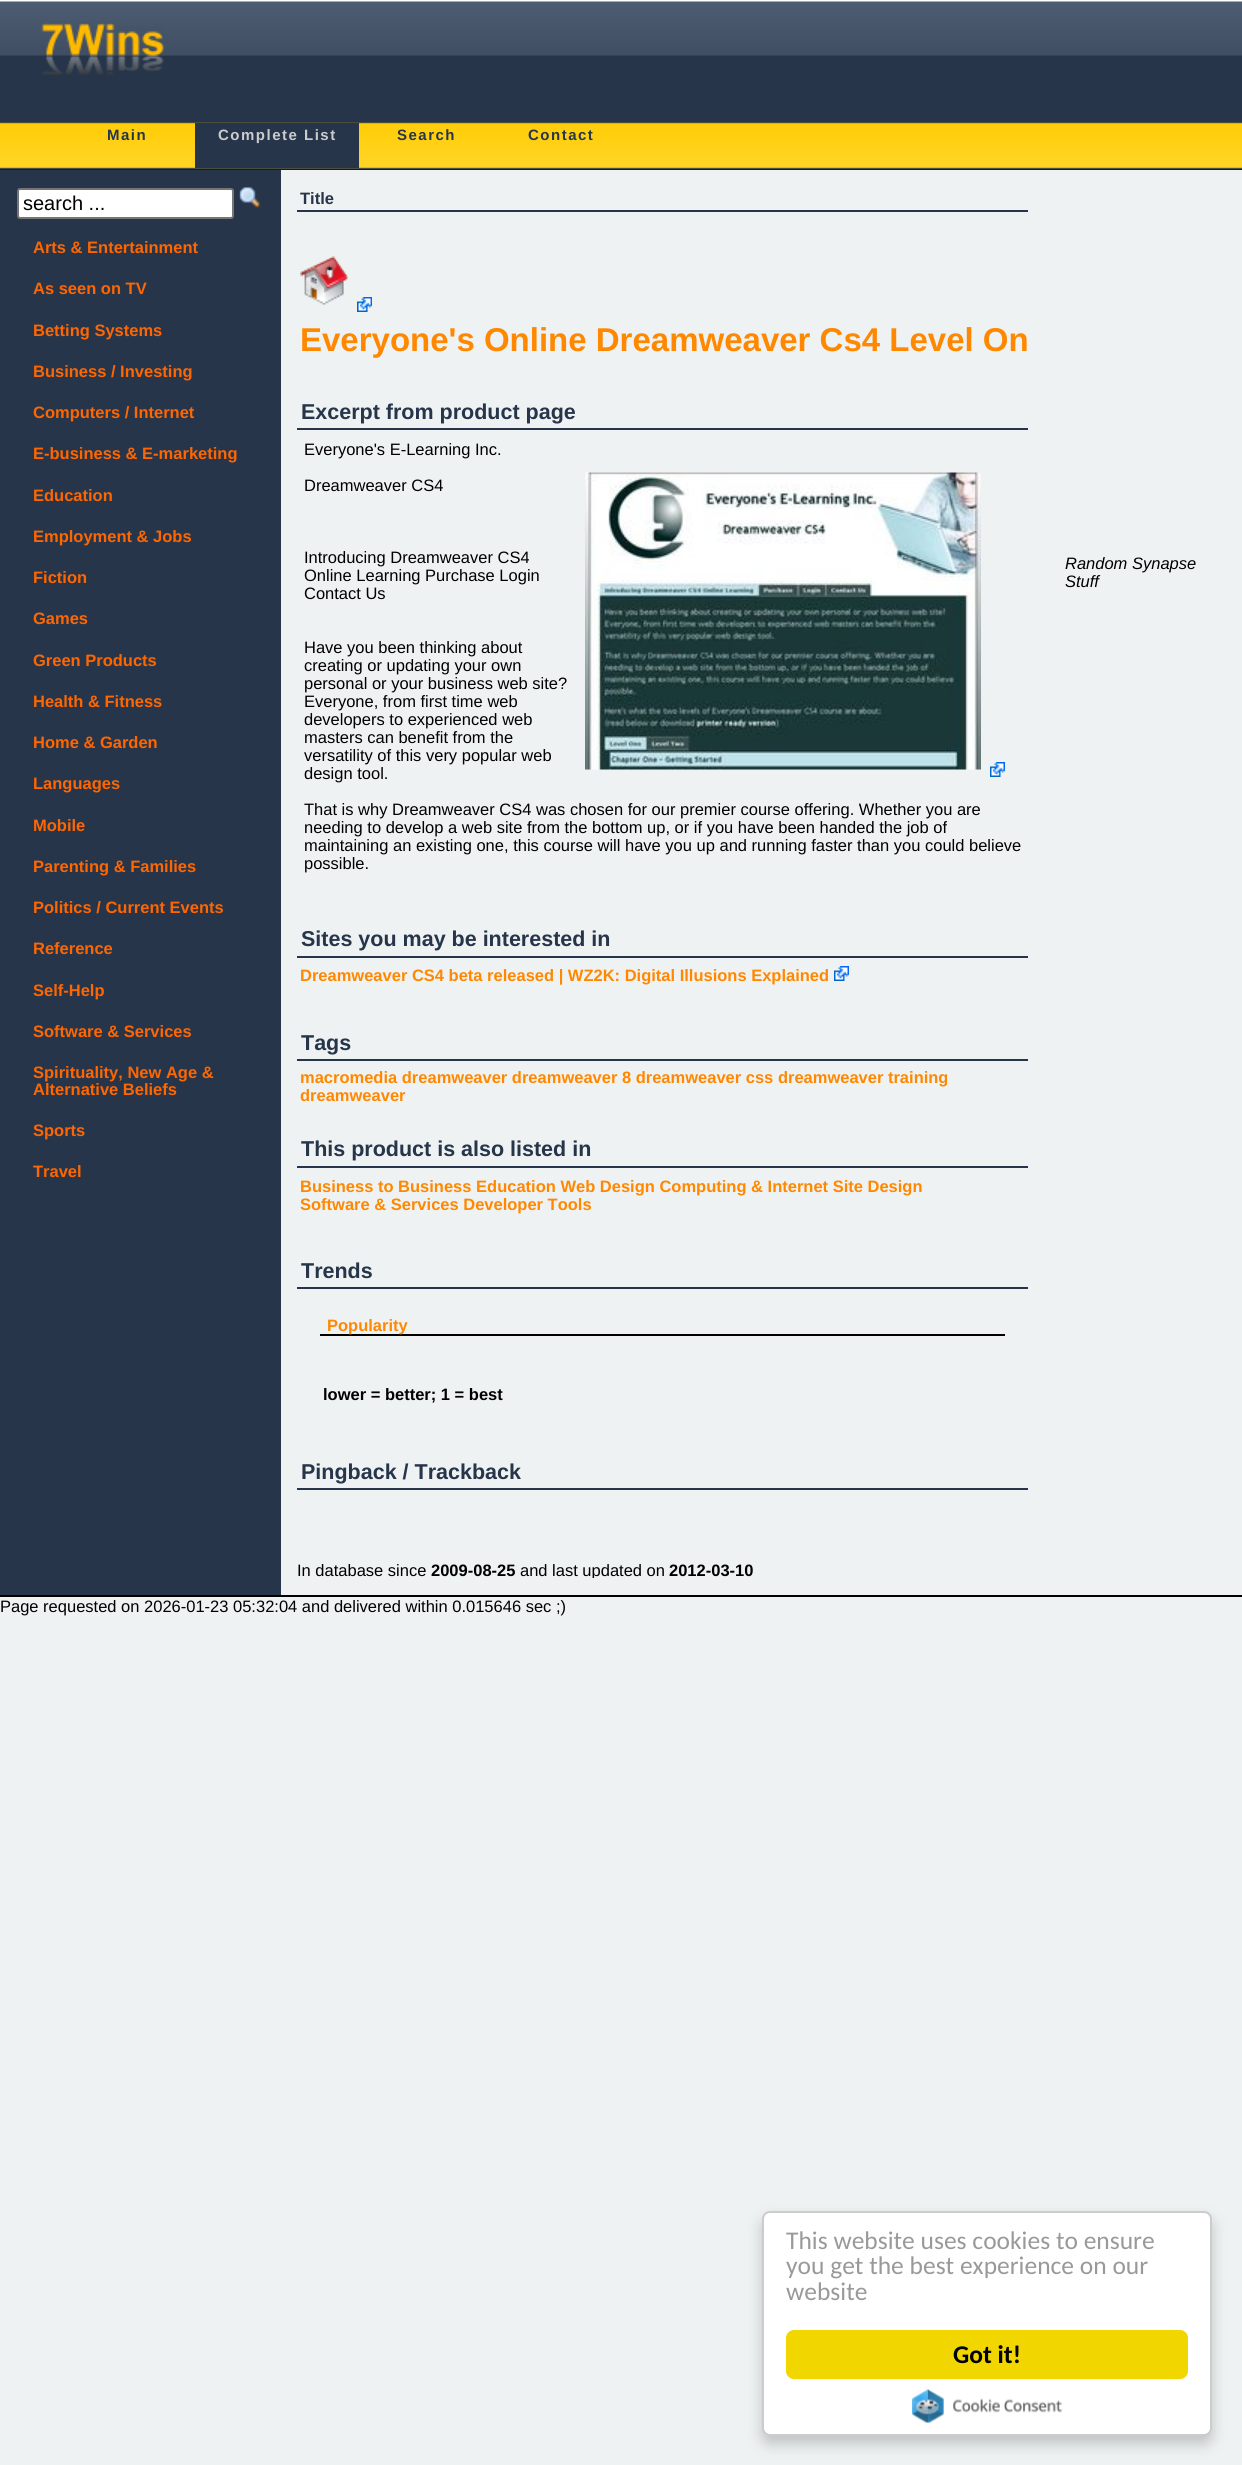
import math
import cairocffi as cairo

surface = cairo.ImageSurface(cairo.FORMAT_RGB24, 1242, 2465)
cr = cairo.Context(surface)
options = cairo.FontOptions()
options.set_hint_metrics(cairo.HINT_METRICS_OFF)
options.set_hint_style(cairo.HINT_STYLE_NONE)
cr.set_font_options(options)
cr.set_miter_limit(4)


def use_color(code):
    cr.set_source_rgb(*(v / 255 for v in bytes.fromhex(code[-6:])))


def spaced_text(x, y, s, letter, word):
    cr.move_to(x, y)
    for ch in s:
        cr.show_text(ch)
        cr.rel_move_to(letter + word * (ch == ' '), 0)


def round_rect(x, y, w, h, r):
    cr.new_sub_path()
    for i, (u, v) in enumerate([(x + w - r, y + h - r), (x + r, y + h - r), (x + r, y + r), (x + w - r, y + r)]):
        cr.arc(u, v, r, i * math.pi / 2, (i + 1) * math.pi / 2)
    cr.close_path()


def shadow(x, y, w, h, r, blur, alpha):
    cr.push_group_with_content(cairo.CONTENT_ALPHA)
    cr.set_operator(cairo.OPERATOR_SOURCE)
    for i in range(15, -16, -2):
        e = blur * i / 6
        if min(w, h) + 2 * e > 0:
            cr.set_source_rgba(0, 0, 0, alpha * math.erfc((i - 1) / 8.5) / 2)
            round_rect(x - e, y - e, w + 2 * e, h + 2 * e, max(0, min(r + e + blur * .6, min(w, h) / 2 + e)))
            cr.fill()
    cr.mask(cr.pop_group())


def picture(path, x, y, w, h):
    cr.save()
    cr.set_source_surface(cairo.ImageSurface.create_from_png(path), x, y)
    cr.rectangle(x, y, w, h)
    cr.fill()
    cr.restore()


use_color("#eff2f3")
cr.paint()
use_color("#000000")
cr.rectangle(0, 169, 1242, 1)
cr.fill()
picture("img1.png", 0, 0, 1242, 122)
picture("img2.png", 41, 23, 123, 53)
picture("img3.png", 0, 122, 1242, 48)
cr.select_font_face("Liberation Sans", cairo.FONT_SLANT_NORMAL, cairo.FONT_WEIGHT_BOLD)
cr.set_font_size(15)
use_color("#26354a")
spaced_text(107, 140, "Main", 1.5, 0)
cr.rectangle(195, 123, 164, 45)
cr.fill()
use_color("#cccccc")
spaced_text(218, 140, "Complete List", 1.5, 0)
use_color("#26354a")
spaced_text(397, 140, "Search", 1.5, 0)
spaced_text(528, 140, "Contact", 1.5, 0)
cr.rectangle(0, 170, 281, 1425)
cr.fill()
use_color("#ffffff")
round_rect(18, 189, 215, 29, 2)
cr.fill_preserve()
use_color("#767676")
cr.stroke()
cr.select_font_face("Liberation Sans")
cr.set_font_size(20)
use_color("#000000")
cr.move_to(23, 210)
cr.show_text("search ...")
picture("img4.png", 239, 187, 21, 22)
cr.select_font_face("Liberation Sans", cairo.FONT_SLANT_NORMAL, cairo.FONT_WEIGHT_BOLD)
cr.set_font_size(16.5)
use_color("#ff6600")
cr.move_to(33, 253)
cr.show_text("Arts & Entertainment")
cr.move_to(33, 294)
cr.show_text("As seen on TV")
cr.move_to(33, 336)
cr.show_text("Betting Systems")
cr.move_to(33, 377)
cr.show_text("Business / Investing")
cr.move_to(33, 418)
cr.show_text("Computers / Internet")
cr.move_to(33, 459)
cr.show_text("E-business & E-marketing")
cr.move_to(33, 501)
cr.show_text("Education")
cr.move_to(33, 542)
cr.show_text("Employment & Jobs")
cr.move_to(33, 583)
cr.show_text("Fiction")
cr.move_to(33, 624)
cr.show_text("Games")
cr.move_to(33, 666)
cr.show_text("Green Products")
cr.move_to(33, 707)
cr.show_text("Health & Fitness")
cr.move_to(33, 748)
cr.show_text("Home & Garden")
cr.move_to(33, 789)
cr.show_text("Languages")
cr.move_to(33, 831)
cr.show_text("Mobile")
cr.move_to(33, 872)
cr.show_text("Parenting & Families")
cr.move_to(33, 913)
cr.show_text("Politics / Current Events")
cr.move_to(33, 954)
cr.show_text("Reference")
cr.move_to(33, 996)
cr.show_text("Self-Help")
cr.move_to(33, 1037)
cr.show_text("Software & Services")
cr.move_to(33, 1078)
cr.show_text("Spirituality, New Age &")
cr.move_to(33, 1095)
cr.show_text("Alternative Beliefs")
cr.move_to(33, 1136)
cr.show_text("Sports")
cr.move_to(33, 1177)
cr.show_text("Travel")
use_color("#26354a")
cr.rectangle(297, 210, 731, 2)
cr.fill()
cr.move_to(300, 204)
cr.show_text("Title")
picture("img5.png", 300, 256, 48, 49)
picture("img6.png", 357, 297, 15, 15)
cr.set_font_size(33)
use_color("#ff8800")
cr.move_to(300, 351)
cr.show_text("Everyone's Online Dreamweaver Cs4 Level On")
use_color("#26354a")
cr.rectangle(297, 428, 731, 2)
cr.fill()
cr.set_font_size(21.5)
cr.move_to(301, 419)
cr.show_text("Excerpt from product page")
cr.select_font_face("Liberation Sans")
cr.set_font_size(16.5)
use_color("#000000")
cr.move_to(304, 455)
cr.show_text("Everyone's E-Learning Inc.")
cr.move_to(304, 491)
cr.show_text("Dreamweaver CS4")
picture("img7.png", 585, 472, 396, 298)
picture("img8.png", 990, 762, 15, 15)
cr.move_to(304, 563)
cr.show_text("Introducing Dreamweaver CS4")
cr.move_to(304, 581)
cr.show_text("Online Learning Purchase Login")
cr.move_to(304, 599)
cr.show_text("Contact Us")
cr.move_to(304, 653)
cr.show_text("Have you been thinking about")
cr.move_to(304, 671)
cr.show_text("creating or updating your own")
cr.move_to(304, 689)
cr.show_text("personal or your business web site?")
cr.move_to(304, 707)
cr.show_text("Everyone, from first time web")
cr.move_to(304, 725)
cr.show_text("developers to experienced web")
cr.move_to(304, 743)
cr.show_text("masters can benefit from the")
cr.move_to(304, 761)
cr.show_text("versatility of this very popular web")
cr.move_to(304, 779)
cr.show_text("design tool.")
cr.move_to(304, 815)
cr.show_text("That is why Dreamweaver CS4 was chosen for our premier course offering. Whether you are")
cr.move_to(304, 833)
cr.show_text("needing to develop a web site from the bottom up, or if you have been handed the job of")
cr.move_to(304, 851)
cr.show_text("maintaining an existing one, this course will have you up and running faster than you could believe")
cr.move_to(304, 869)
cr.show_text("possible.")
use_color("#26354a")
cr.rectangle(297, 956, 731, 2)
cr.fill()
cr.select_font_face("Liberation Sans", cairo.FONT_SLANT_NORMAL, cairo.FONT_WEIGHT_BOLD)
cr.set_font_size(21.5)
cr.move_to(301, 946)
cr.show_text("Sites you may be interested in")
cr.set_font_size(16.5)
use_color("#ff8800")
cr.move_to(300, 981)
cr.show_text("Dreamweaver CS4 beta released | WZ2K: Digital Illusions Explained")
picture("img8.png", 834, 966, 15, 15)
use_color("#26354a")
cr.rectangle(297, 1059, 731, 2)
cr.fill()
cr.set_font_size(21.5)
cr.move_to(301, 1050)
cr.show_text("Tags")
cr.set_font_size(16.5)
use_color("#ff8800")
cr.move_to(300, 1083)
cr.show_text("macromedia dreamweaver dreamweaver 8 dreamweaver css dreamweaver training")
cr.move_to(300, 1101)
cr.show_text("dreamweaver")
use_color("#26354a")
cr.rectangle(297, 1166, 731, 2)
cr.fill()
cr.set_font_size(21.5)
cr.move_to(301, 1156)
cr.show_text("This product is also listed in")
cr.set_font_size(16.5)
use_color("#ff8800")
cr.move_to(300, 1192)
cr.show_text("Business to Business Education Web Design Computing & Internet Site Design")
cr.move_to(300, 1210)
cr.show_text("Software & Services Developer Tools")
use_color("#26354a")
cr.rectangle(297, 1287, 731, 2)
cr.fill()
cr.set_font_size(21.5)
cr.move_to(301, 1278)
cr.show_text("Trends")
use_color("#000000")
cr.rectangle(320, 1334, 685, 2)
cr.fill()
cr.set_font_size(16.5)
use_color("#ff8800")
cr.move_to(327, 1331)
cr.show_text("Popularity")
use_color("#000000")
cr.move_to(323, 1400)
cr.show_text("lower = better; 1 = best")
use_color("#26354a")
cr.rectangle(297, 1488, 731, 2)
cr.fill()
cr.set_font_size(21.5)
cr.move_to(301, 1479)
cr.show_text("Pingback / Trackback")
cr.select_font_face("Liberation Sans")
cr.set_font_size(16.5)
use_color("#000000")
cr.move_to(297, 1576)
cr.show_text("In database since")
cr.select_font_face("Liberation Sans", cairo.FONT_SLANT_NORMAL, cairo.FONT_WEIGHT_BOLD)
cr.move_to(431, 1576)
cr.show_text("2009-08-25")
cr.save()
cr.rectangle(297, 186, 731, 1392)
cr.clip()
cr.select_font_face("Liberation Sans")
cr.move_to(520, 1576)
cr.show_text("and last updated on")
cr.restore()
cr.move_to(669, 1576)
cr.show_text("2012-03-10")
cr.select_font_face("Liberation Sans", cairo.FONT_SLANT_ITALIC)
cr.move_to(1065, 569)
cr.show_text("Random Synapse")
cr.move_to(1065, 587)
cr.show_text("Stuff")
cr.rectangle(0, 1595, 1242, 2)
cr.fill()
cr.select_font_face("Liberation Sans")
cr.move_to(0, 1612)
cr.show_text("Page requested on 2026-01-23 05:32:04 and delivered within 0.015646 sec ;)")
use_color("#000000")
shadow(762, 2219, 450, 225, 8, 7.5, 0.2)
use_color("#ffffff")
round_rect(763, 2212, 448, 223, 7)
cr.fill_preserve()
use_color("#cccccc")
cr.stroke()
cr.select_font_face("Carlito")
cr.set_font_size(25.5)
use_color("#999999")
cr.move_to(786, 2249)
cr.show_text("This website uses cookies to ensure")
cr.move_to(786, 2274)
cr.show_text("you get the best experience on our")
cr.move_to(786, 2300)
cr.show_text("website")
use_color("#f1d600")
round_rect(786, 2330, 402, 49, 8)
cr.fill()
cr.select_font_face("Carlito", cairo.FONT_SLANT_NORMAL, cairo.FONT_WEIGHT_BOLD)
use_color("#000000")
cr.move_to(953, 2363)
cr.show_text("Got it!")
picture("img9.png", 912, 2389, 150, 34)
surface.write_to_png("result.png")
